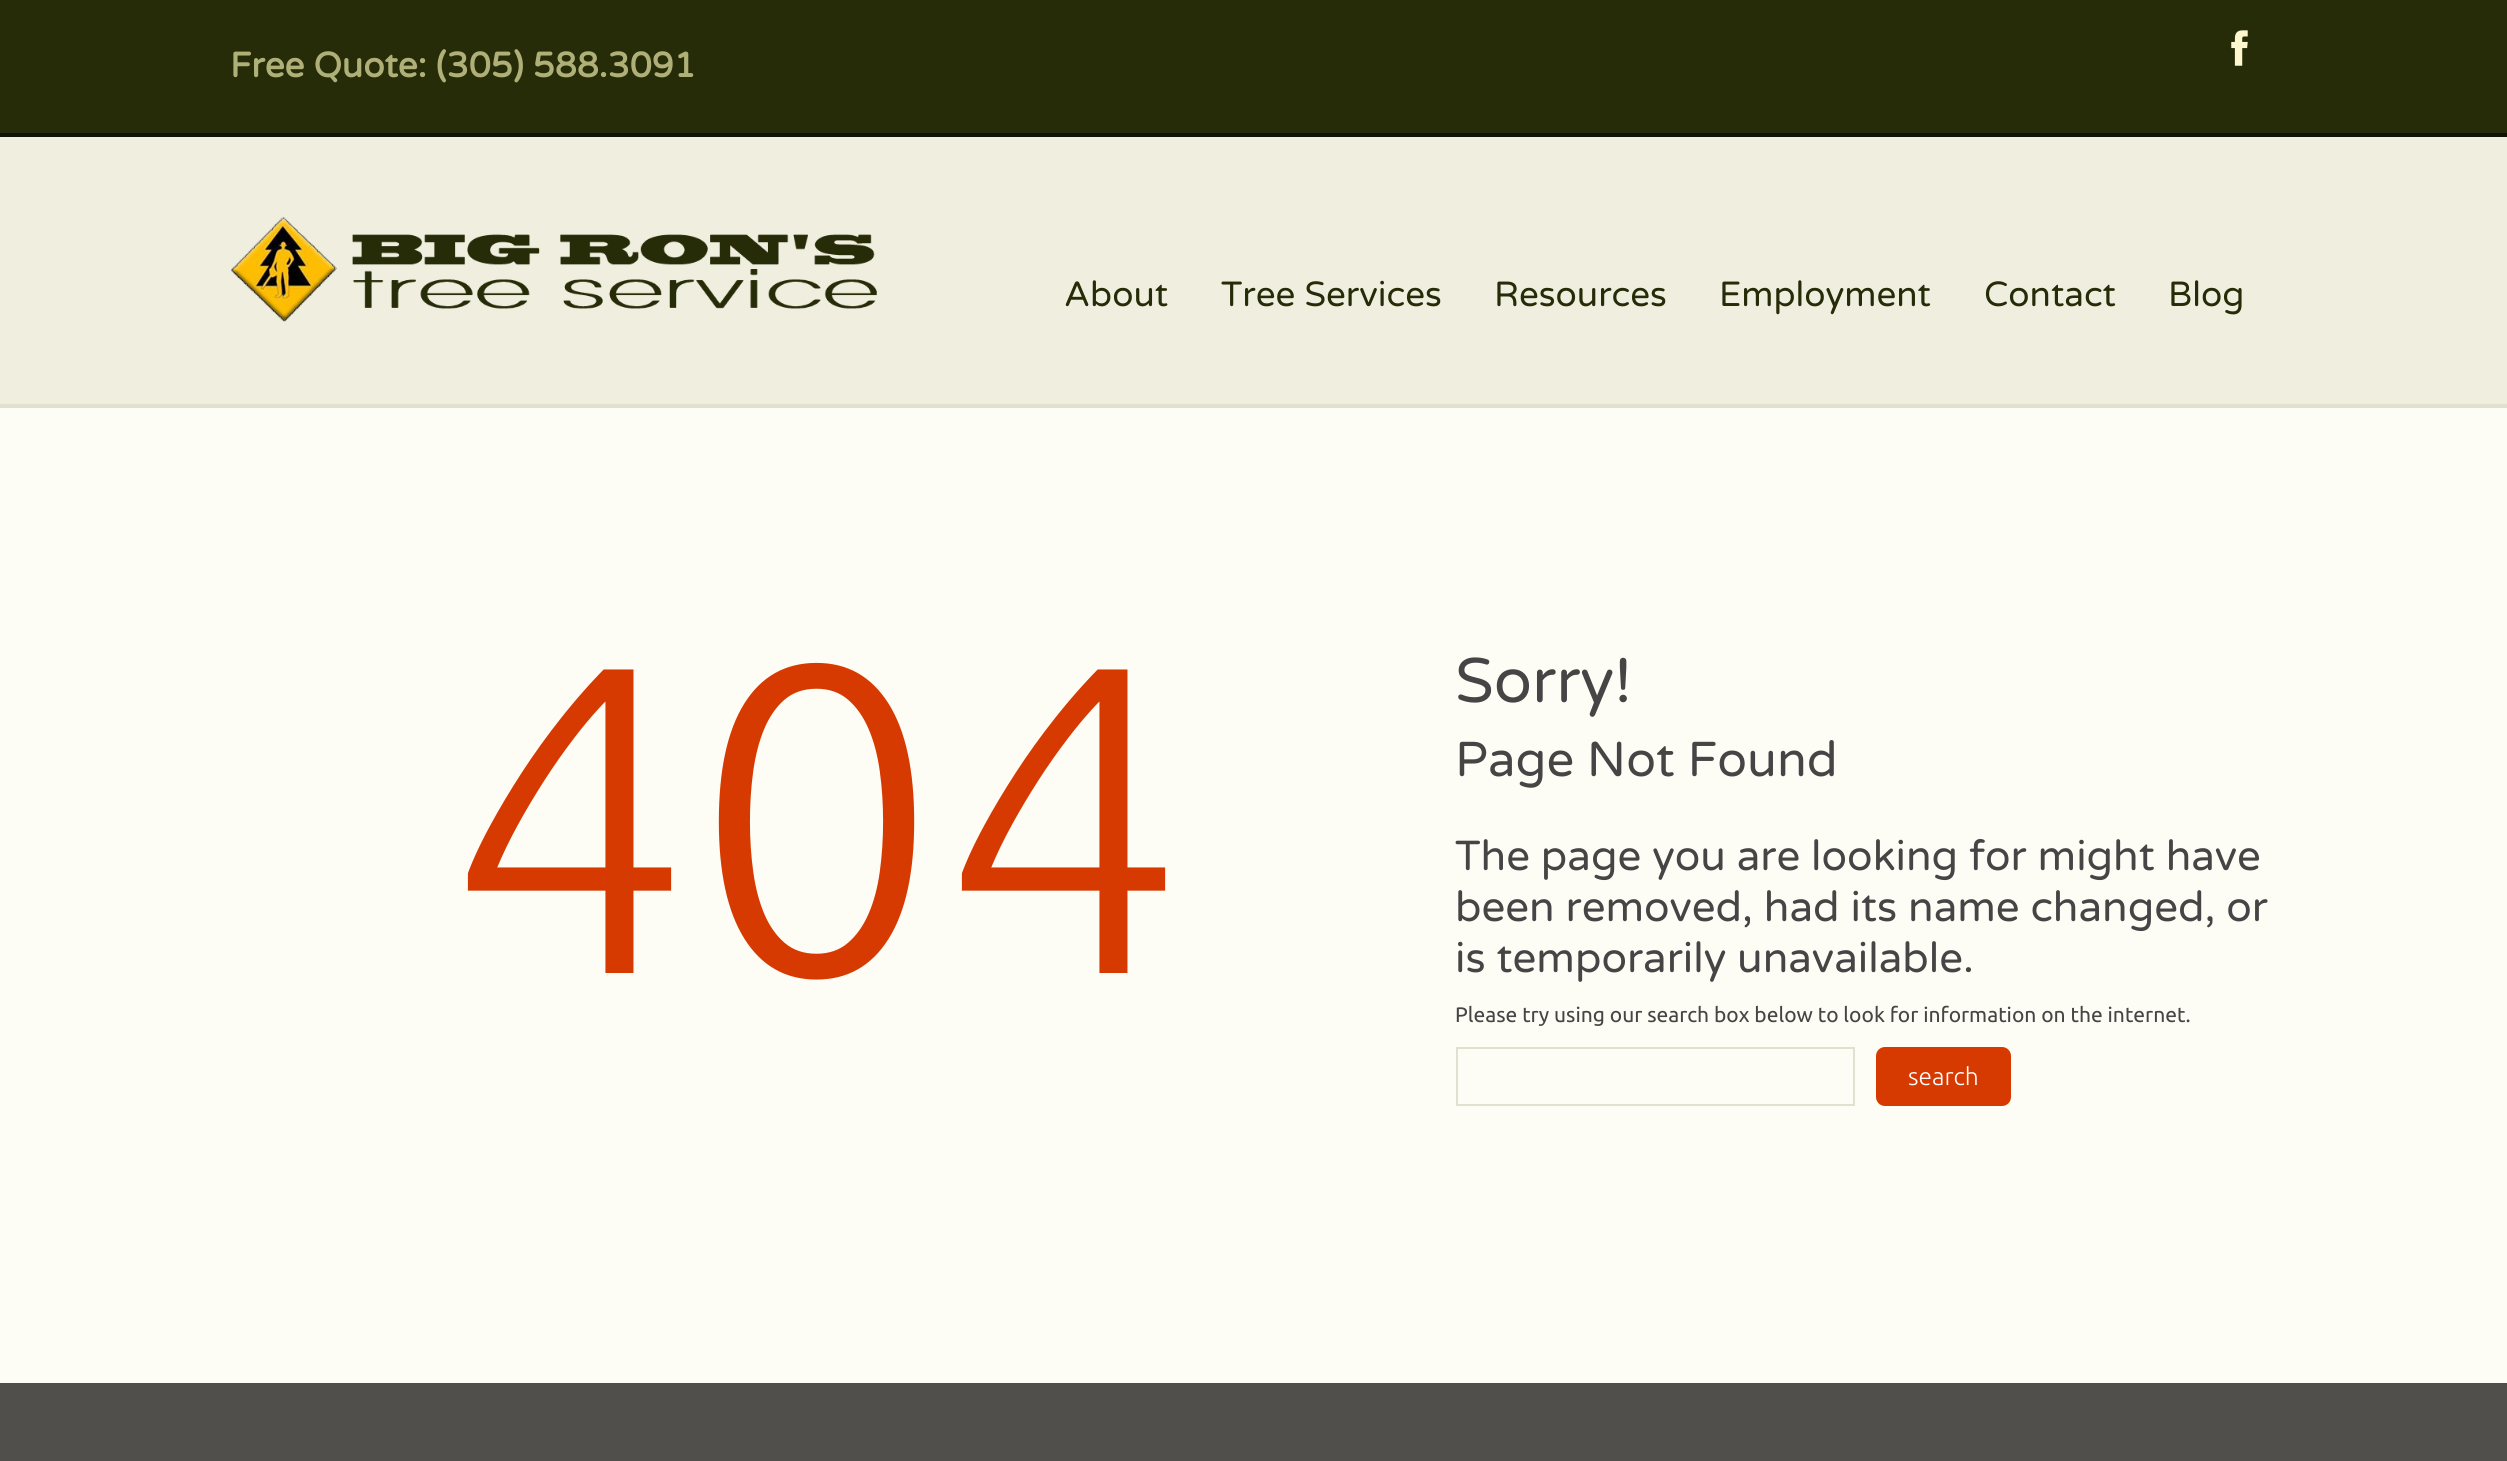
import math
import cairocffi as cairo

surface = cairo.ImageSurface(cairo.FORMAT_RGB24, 2507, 1461)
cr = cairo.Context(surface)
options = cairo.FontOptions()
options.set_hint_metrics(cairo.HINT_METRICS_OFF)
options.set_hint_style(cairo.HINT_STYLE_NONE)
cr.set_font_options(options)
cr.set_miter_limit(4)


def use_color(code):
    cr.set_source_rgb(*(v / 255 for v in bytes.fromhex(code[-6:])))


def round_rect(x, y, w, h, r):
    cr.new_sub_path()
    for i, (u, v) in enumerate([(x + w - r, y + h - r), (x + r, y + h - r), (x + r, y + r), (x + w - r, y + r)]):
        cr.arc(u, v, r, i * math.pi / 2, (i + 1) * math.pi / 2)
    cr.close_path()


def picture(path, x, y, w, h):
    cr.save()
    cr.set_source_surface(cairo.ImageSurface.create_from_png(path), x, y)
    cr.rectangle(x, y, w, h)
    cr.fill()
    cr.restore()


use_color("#fdfcf5")
cr.paint()
use_color("#f0efdf")
cr.rectangle(0, 137, 2507, 267)
cr.fill()
use_color("#e2e1cf")
cr.rectangle(0, 404, 2507, 4)
cr.fill()
use_color("#272c08")
cr.rectangle(0, 0, 2507, 133)
cr.fill()
use_color("#101107")
cr.rectangle(0, 133, 2507, 4)
cr.fill()
cr.select_font_face("Varela Round", cairo.FONT_SLANT_NORMAL, cairo.FONT_WEIGHT_BOLD)
cr.set_font_size(35)
use_color("#afaf78")
cr.move_to(230, 77)
cr.show_text("Free Quote: (305) 588.3091")
picture("img1.png", 2231, 30, 17, 36)
picture("img2.png", 231, 217, 646, 105)
cr.select_font_face("Varela Round")
use_color("#272c08")
cr.move_to(1064, 306)
cr.show_text("About")
cr.move_to(1221, 306)
cr.show_text("Tree Services")
cr.move_to(1494, 306)
cr.show_text("Resources")
cr.move_to(1719, 306)
cr.show_text("Employment")
cr.move_to(1984, 306)
cr.show_text("Contact")
cr.move_to(2168, 306)
cr.show_text("Blog")
cr.select_font_face("Ubuntu Light")
cr.set_font_size(438)
use_color("#d63a00")
cr.move_to(446, 973)
cr.show_text("404")
cr.select_font_face("Varela Round")
cr.set_font_size(63)
use_color("#464545")
cr.move_to(1455, 702)
cr.show_text("Sorry!")
cr.set_font_size(49)
cr.move_to(1455, 776)
cr.show_text("Page Not Found")
cr.set_font_size(42)
cr.move_to(1455, 870)
cr.show_text("The page you are looking for might have")
cr.move_to(1455, 921)
cr.show_text("been removed, had its name changed, or")
cr.move_to(1455, 972)
cr.show_text("is temporarily unavailable.")
cr.select_font_face("Ubuntu")
cr.set_font_size(21)
cr.move_to(1455, 1022)
cr.show_text("Please try using our search box below to look for information on the internet.")
cr.rectangle(1457, 1048, 397, 57)
use_color("#e2e1d0")
cr.stroke()
use_color("#d63a00")
round_rect(1876, 1047, 135, 59, 9)
cr.fill()
cr.select_font_face("Ubuntu Light")
cr.set_font_size(24.5)
use_color("#ffffff")
cr.move_to(1908, 1085)
cr.show_text("search")
use_color("#504f4b")
cr.rectangle(0, 1383, 2507, 78)
cr.fill()
surface.write_to_png("result.png")
